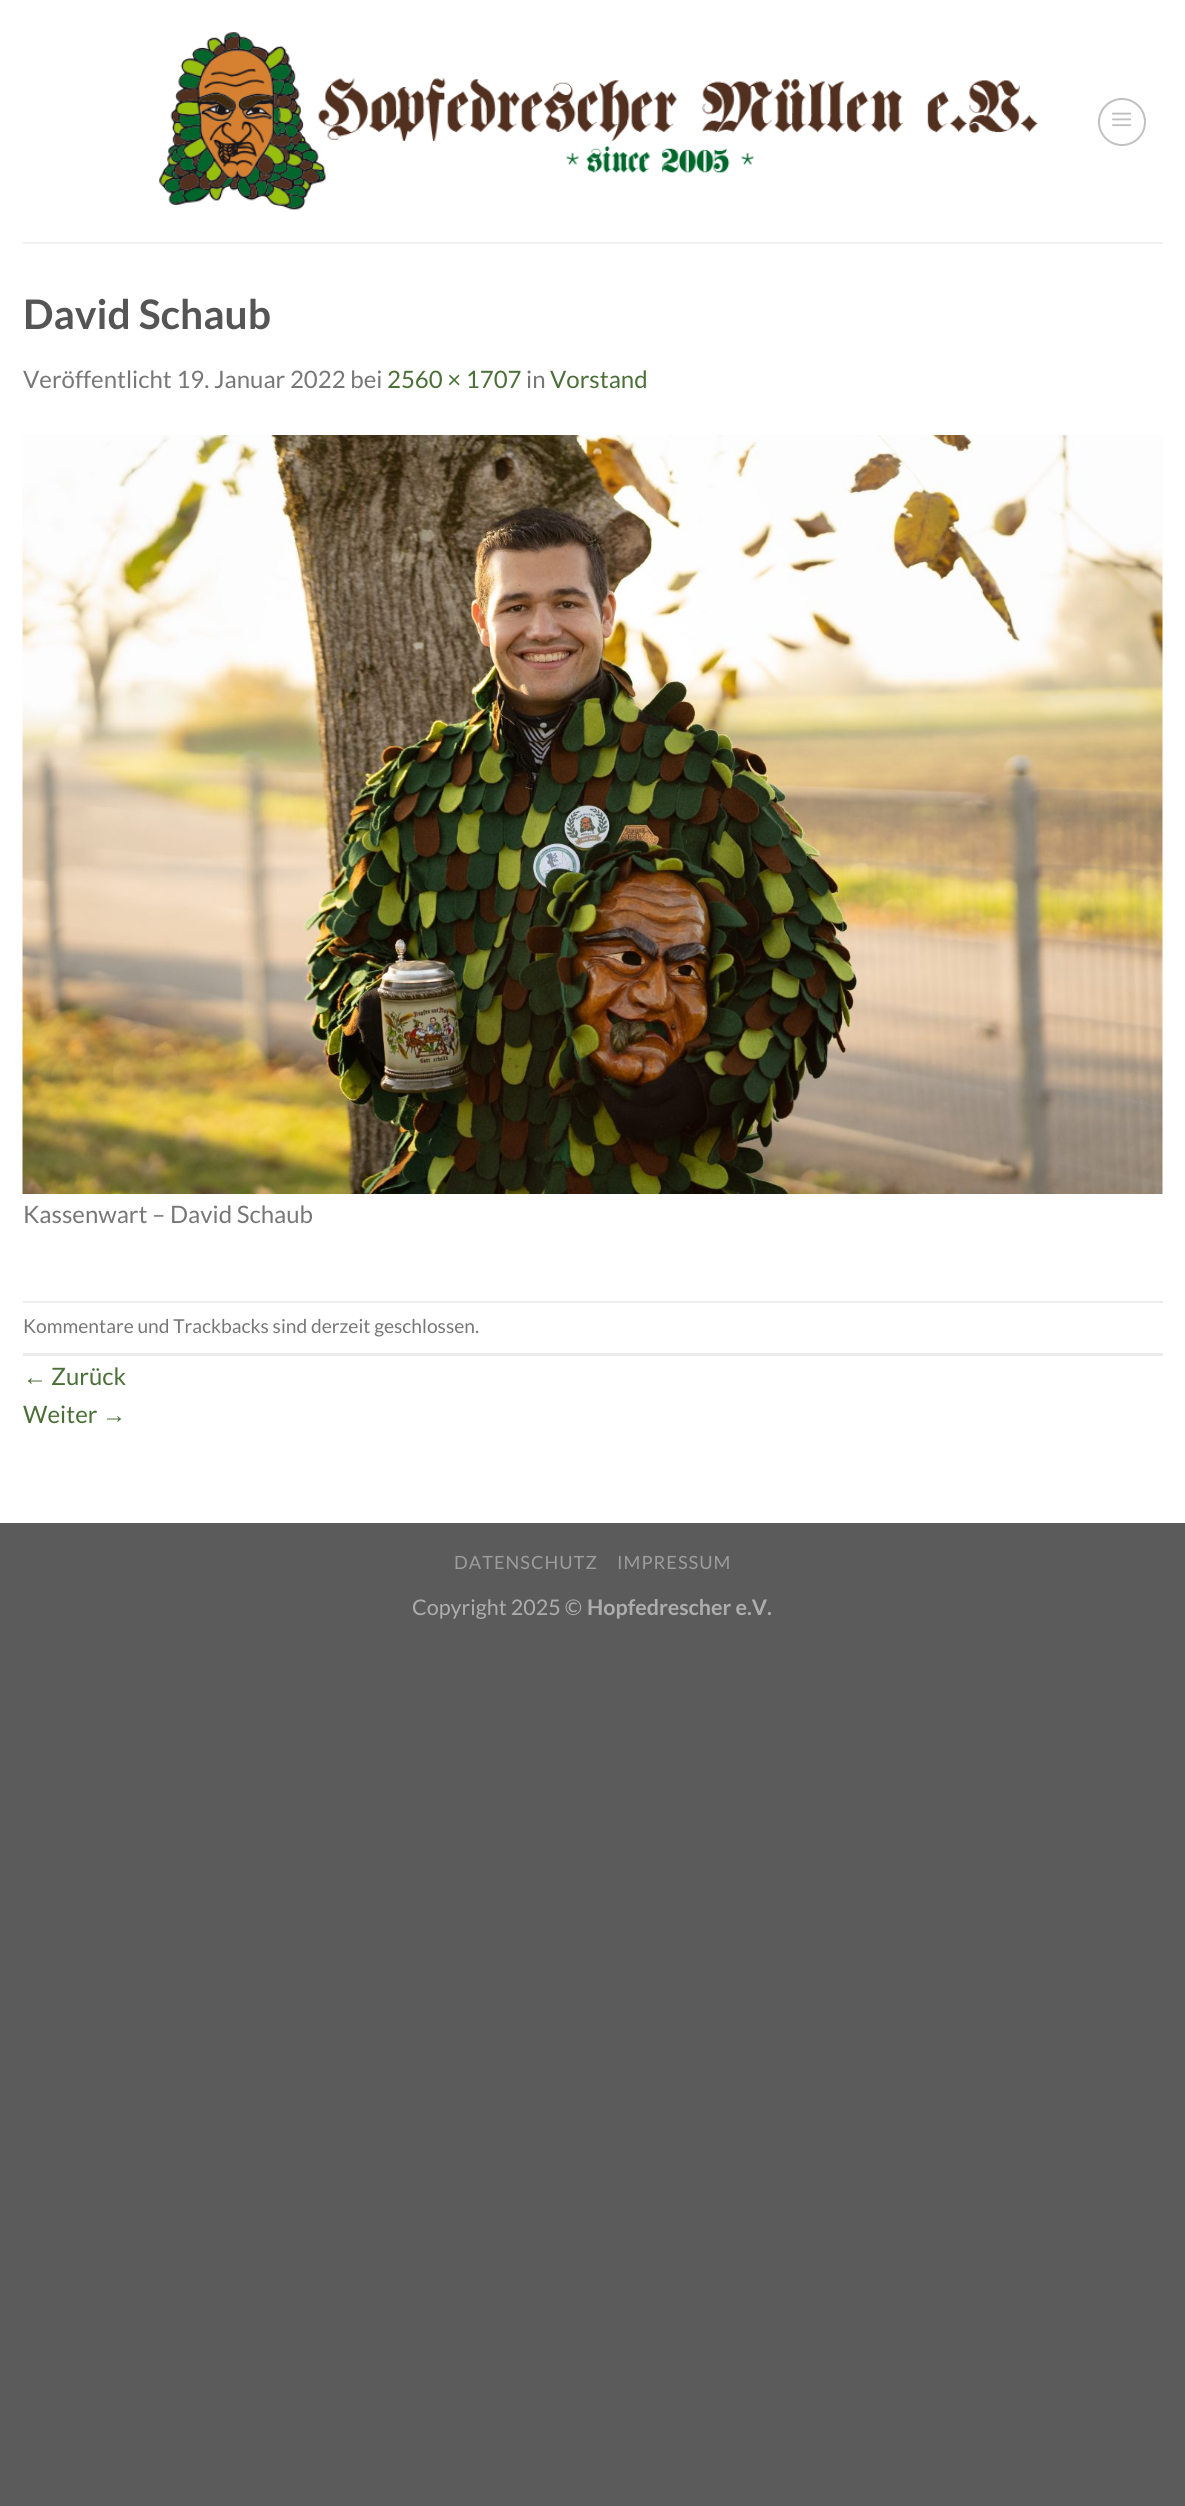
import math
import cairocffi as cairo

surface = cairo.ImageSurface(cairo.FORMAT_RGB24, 1185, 2506)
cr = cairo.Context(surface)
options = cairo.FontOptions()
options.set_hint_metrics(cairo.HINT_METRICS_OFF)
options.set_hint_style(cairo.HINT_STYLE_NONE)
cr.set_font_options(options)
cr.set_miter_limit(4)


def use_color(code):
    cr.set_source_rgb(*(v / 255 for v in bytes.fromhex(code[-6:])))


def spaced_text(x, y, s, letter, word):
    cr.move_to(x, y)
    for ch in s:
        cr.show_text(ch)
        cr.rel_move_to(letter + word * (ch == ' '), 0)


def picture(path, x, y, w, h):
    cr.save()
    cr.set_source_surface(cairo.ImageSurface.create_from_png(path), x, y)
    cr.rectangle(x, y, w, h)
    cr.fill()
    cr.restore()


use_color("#5b5b5b")
cr.paint()
use_color("#ffffff")
cr.rectangle(0, 0, 1185, 1523)
cr.fill()
picture("img1.png", 159, 32, 879, 178)
cr.arc(1122, 122, 23, 0, 2 * math.pi)
use_color("#c0c0c0")
cr.stroke()
picture("img2.png", 1112, 112, 20, 15)
use_color("#f1f1f1")
cr.rectangle(23, 242, 1140, 2)
cr.fill()
cr.select_font_face("Lato", cairo.FONT_SLANT_NORMAL, cairo.FONT_WEIGHT_BOLD)
cr.set_font_size(40.75)
use_color("#555555")
cr.move_to(23, 329)
cr.show_text("David Schaub")
cr.select_font_face("Lato")
cr.set_font_size(24)
use_color("#777777")
cr.move_to(23, 388)
cr.show_text("Veröffentlicht 19. Januar 2022 bei")
use_color("#4b7037")
cr.move_to(387, 388)
cr.show_text("2560 × 1707")
use_color("#777777")
cr.move_to(526, 388)
cr.show_text("in")
use_color("#4b7037")
cr.move_to(550, 388)
cr.show_text("Vorstand")
picture("img3.png", 22, 435, 1141, 759)
use_color("#777777")
cr.move_to(23, 1223)
cr.show_text("Kassenwart – David Schaub")
use_color("#ececec")
cr.rectangle(23, 1301, 1140, 2)
cr.fill()
cr.rectangle(23, 1353, 1140, 3)
cr.fill()
cr.set_font_size(19.2)
use_color("#777777")
cr.move_to(23, 1333)
cr.show_text("Kommentare und Trackbacks sind derzeit geschlossen.")
cr.select_font_face("Liberation Sans")
cr.set_font_size(24)
use_color("#4b7037")
cr.move_to(23, 1385)
cr.show_text("←")
cr.select_font_face("Lato")
cr.move_to(51, 1385)
cr.show_text("Zurück")
cr.move_to(23, 1423)
cr.show_text("Weiter")
cr.select_font_face("Liberation Sans")
cr.move_to(102, 1423)
cr.show_text("→")
cr.select_font_face("Lato")
cr.set_font_size(18.25)
use_color("#9d9d9d")
spaced_text(454, 1569, "DATENSCHUTZ", 1, 0)
spaced_text(617, 1569, "IMPRESSUM", 1, 0)
cr.set_font_size(21.5)
use_color("#adadad")
cr.move_to(412, 1615)
cr.show_text("Copyright 2025 ©")
cr.select_font_face("Lato", cairo.FONT_SLANT_NORMAL, cairo.FONT_WEIGHT_BOLD)
cr.move_to(587, 1615)
cr.show_text("Hopfedrescher e.V.")
surface.write_to_png("result.png")
